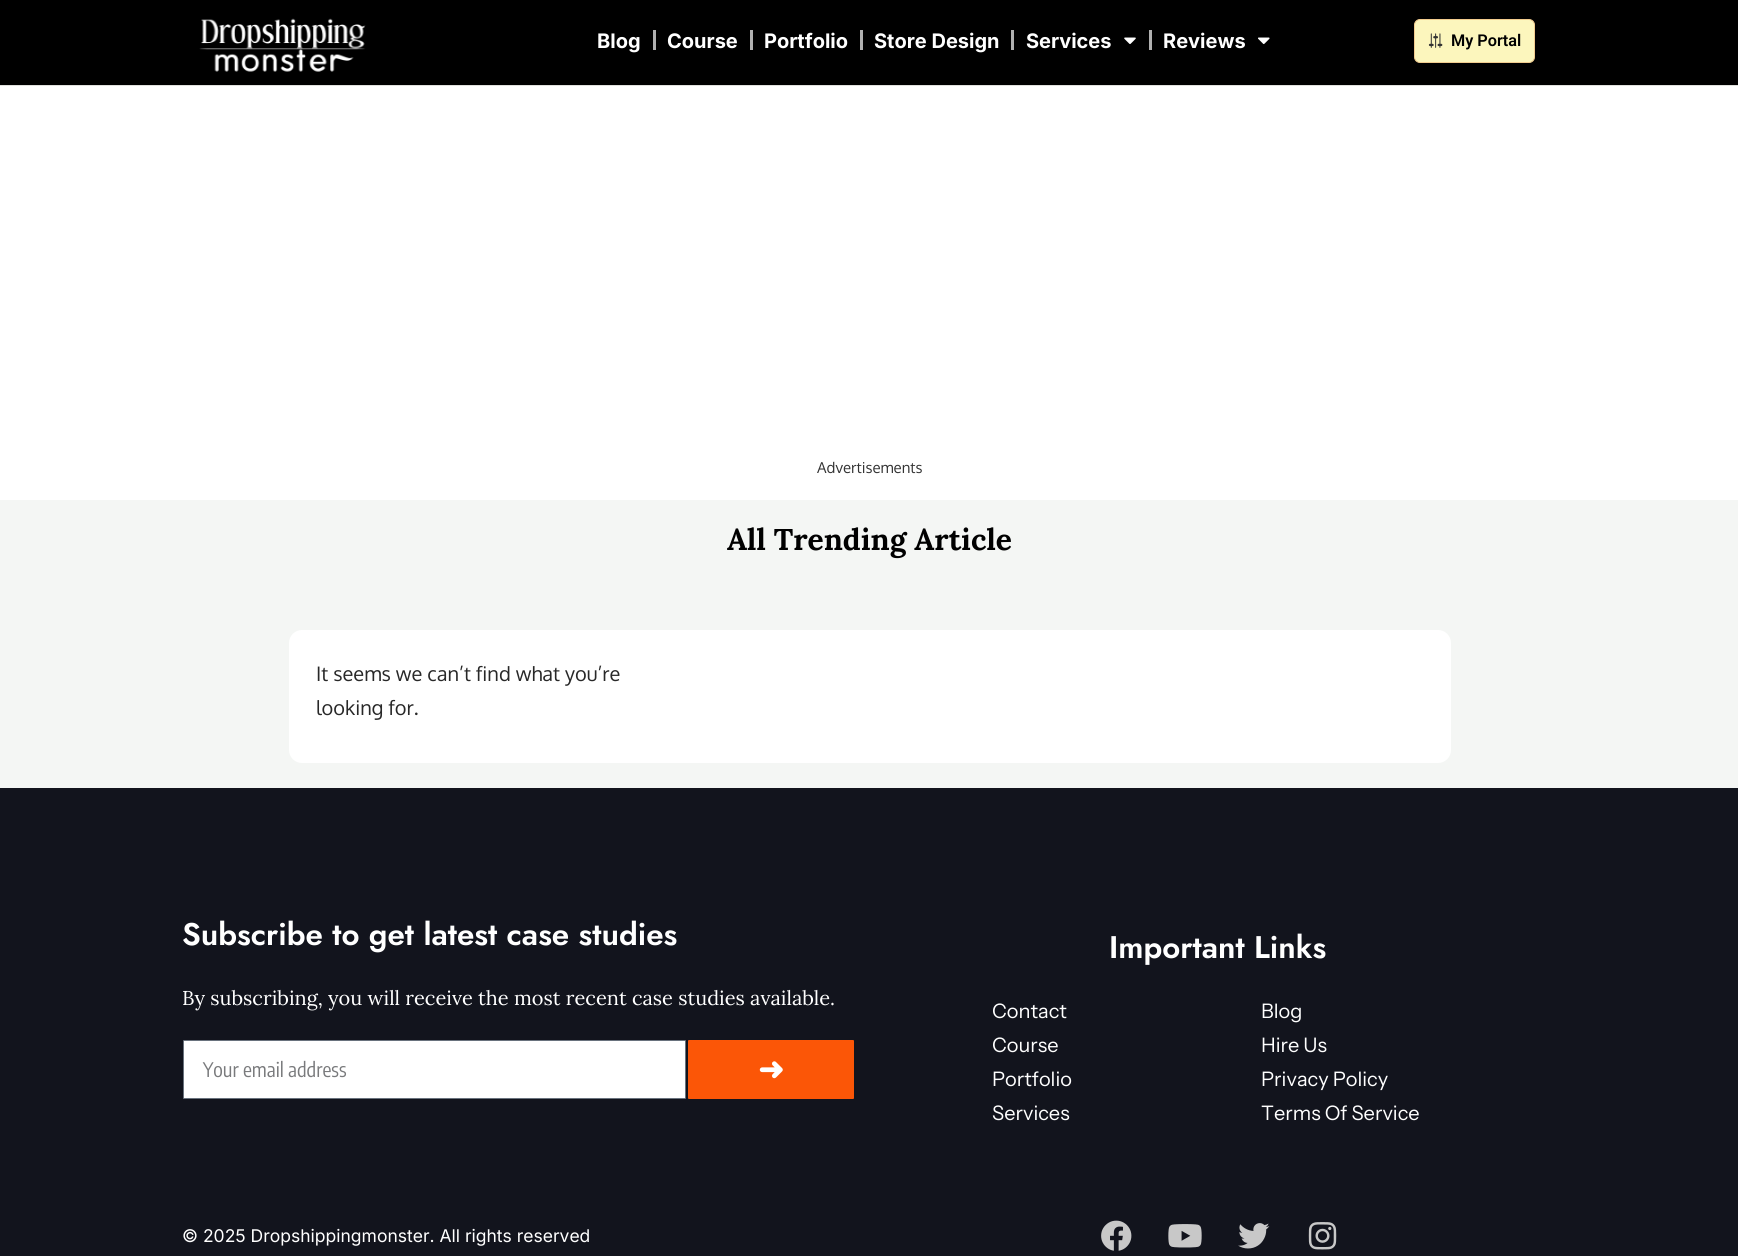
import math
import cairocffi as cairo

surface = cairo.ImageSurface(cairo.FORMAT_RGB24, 1738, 1256)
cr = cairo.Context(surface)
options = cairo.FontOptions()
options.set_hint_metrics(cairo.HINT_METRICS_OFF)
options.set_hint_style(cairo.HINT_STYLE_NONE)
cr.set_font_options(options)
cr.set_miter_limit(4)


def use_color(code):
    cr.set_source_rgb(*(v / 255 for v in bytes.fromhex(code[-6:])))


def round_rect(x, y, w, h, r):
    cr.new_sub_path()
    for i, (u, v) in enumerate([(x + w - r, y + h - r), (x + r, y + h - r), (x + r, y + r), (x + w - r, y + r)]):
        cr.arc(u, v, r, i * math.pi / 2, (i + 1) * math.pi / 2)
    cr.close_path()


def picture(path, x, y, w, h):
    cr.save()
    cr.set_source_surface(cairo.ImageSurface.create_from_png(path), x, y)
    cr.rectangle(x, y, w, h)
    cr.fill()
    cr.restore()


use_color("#ffffff")
cr.paint()
use_color("#000000")
cr.rectangle(0, 0, 1738, 85)
cr.fill()
use_color("#e0e1dd")
cr.rectangle(0, 85, 1738, 1)
cr.fill()
picture("img1.png", 199, 18, 167, 54)
cr.select_font_face("Inter", cairo.FONT_SLANT_NORMAL, cairo.FONT_WEIGHT_BOLD)
cr.set_font_size(20)
use_color("#ffffff")
cr.move_to(597, 48)
cr.show_text("Blog")
use_color("#b0b0b0")
cr.rectangle(653, 30, 3, 20)
cr.fill()
use_color("#ffffff")
cr.move_to(667, 48)
cr.show_text("Course")
use_color("#b0b0b0")
cr.rectangle(750, 30, 3, 20)
cr.fill()
use_color("#ffffff")
cr.move_to(764, 48)
cr.show_text("Portfolio")
use_color("#b0b0b0")
cr.rectangle(860, 30, 3, 20)
cr.fill()
use_color("#ffffff")
cr.move_to(874, 48)
cr.show_text("Store Design")
use_color("#b0b0b0")
cr.rectangle(1011, 30, 3, 20)
cr.fill()
use_color("#ffffff")
cr.move_to(1026, 48)
cr.show_text("Services")
picture("img2.png", 1124, 37, 12, 7)
use_color("#b0b0b0")
cr.rectangle(1149, 30, 3, 20)
cr.fill()
use_color("#ffffff")
cr.move_to(1163, 48)
cr.show_text("Reviews")
picture("img3.png", 1258, 37, 12, 8)
use_color("#fcf6bd")
round_rect(1414.5, 19.5, 120, 43, 5.5)
cr.fill_preserve()
use_color("#f2cc8f")
cr.set_line_width(1)
cr.stroke()
picture("img4.png", 1428, 33, 15, 15)
cr.select_font_face("Roboto SemiBold")
cr.set_font_size(16.25)
use_color("#000000")
cr.move_to(1451, 46)
cr.show_text("My Portal")
cr.select_font_face("Oxygen")
cr.set_font_size(15)
use_color("#333333")
cr.move_to(817, 473)
cr.show_text("Advertisements")
use_color("#f4f6f4")
cr.rectangle(0, 500, 1738, 288)
cr.fill()
cr.select_font_face("Lora", cairo.FONT_SLANT_NORMAL, cairo.FONT_WEIGHT_BOLD)
cr.set_font_size(30)
use_color("#000000")
cr.move_to(727, 550)
cr.show_text("All Trending Article")
use_color("#ffffff")
round_rect(289, 630, 1162, 133, 13)
cr.fill()
cr.select_font_face("Oxygen")
cr.set_font_size(20)
use_color("#282828")
cr.move_to(316, 681)
cr.show_text("It seems we can’t find what you’re")
cr.move_to(316, 715)
cr.show_text("looking for.")
use_color("#12141d")
cr.rectangle(0, 788, 1738, 468)
cr.fill()
cr.select_font_face("Jost SemiBold")
cr.set_font_size(31.25)
use_color("#ffffff")
cr.move_to(182, 945)
cr.show_text("Subscribe to get latest case studies")
cr.select_font_face("Lora")
cr.set_font_size(20)
cr.move_to(182, 1005)
cr.show_text("By subscribing, you will receive the most recent case studies available.")
round_rect(183.5, 1040.5, 502, 58, 0.5)
cr.fill_preserve()
use_color("#69727d")
cr.stroke()
cr.select_font_face("Encode Sans Condensed")
use_color("#797a7c")
cr.move_to(203, 1077)
cr.show_text("Your email address")
use_color("#fb5607")
round_rect(688, 1040, 166, 59, 1)
cr.fill()
cr.select_font_face("DejaVu Sans", cairo.FONT_SLANT_NORMAL, cairo.FONT_WEIGHT_BOLD)
cr.set_font_size(31.25)
use_color("#ffffff")
cr.move_to(758, 1080)
cr.show_text("➜")
cr.select_font_face("Jost SemiBold")
cr.move_to(1109, 958)
cr.show_text("Important Links")
cr.select_font_face("Instrument Sans")
cr.set_font_size(20)
cr.move_to(992, 1018)
cr.show_text("Contact")
cr.move_to(992, 1052)
cr.show_text("Course")
cr.move_to(992, 1086)
cr.show_text("Portfolio")
cr.move_to(992, 1120)
cr.show_text("Services")
cr.move_to(1261, 1018)
cr.show_text("Blog")
cr.move_to(1261, 1052)
cr.show_text("Hire Us")
cr.move_to(1261, 1086)
cr.show_text("Privacy Policy")
cr.move_to(1261, 1120)
cr.show_text("Terms Of Service")
cr.select_font_face("Inter")
cr.set_font_size(17.5)
cr.move_to(182, 1242)
cr.show_text("© 2025 Dropshippingmonster. All rights reserved")
picture("img5.png", 1101, 1220, 31, 31)
picture("img6.png", 1168, 1224, 34, 24)
picture("img7.png", 1238, 1223, 32, 26)
picture("img8.png", 1308, 1222, 29, 28)
surface.write_to_png("result.png")
